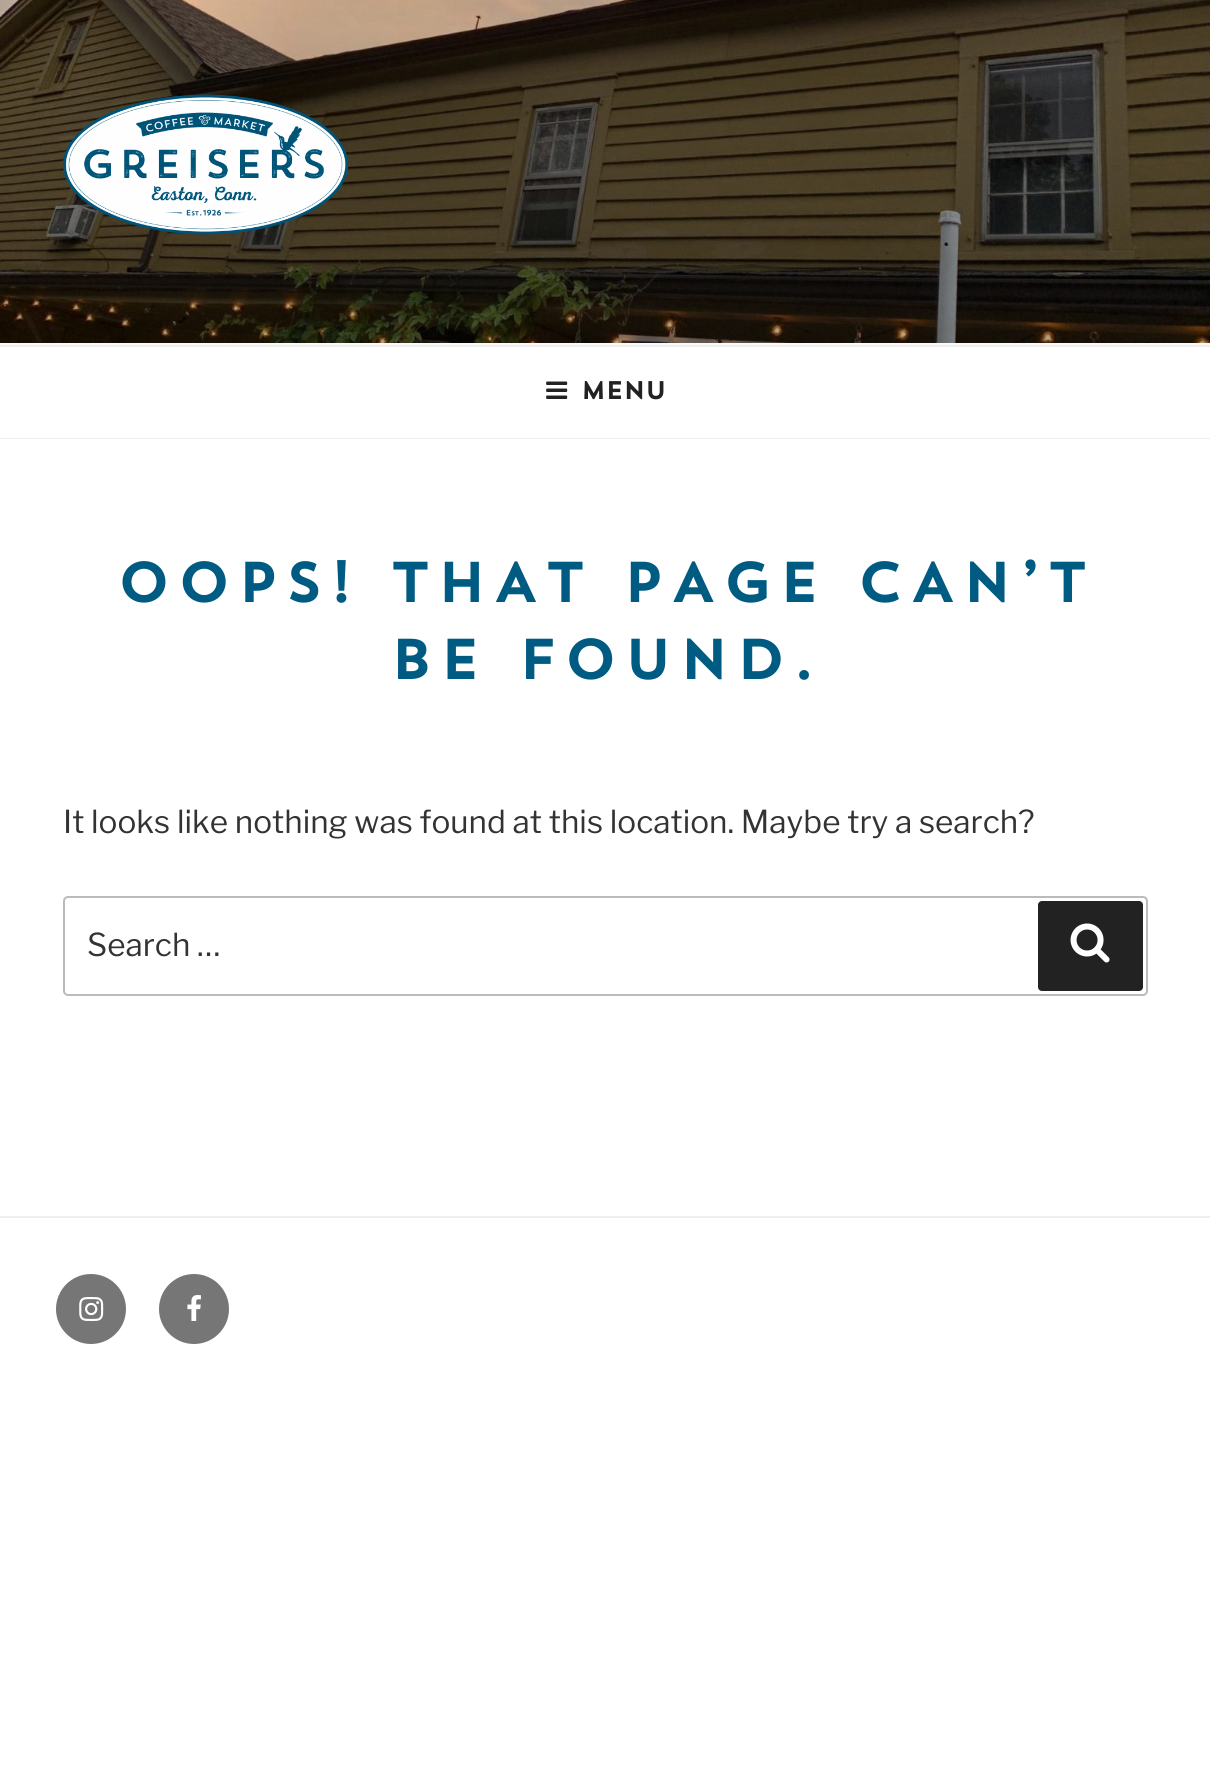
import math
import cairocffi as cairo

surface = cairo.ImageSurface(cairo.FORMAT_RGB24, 1210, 1783)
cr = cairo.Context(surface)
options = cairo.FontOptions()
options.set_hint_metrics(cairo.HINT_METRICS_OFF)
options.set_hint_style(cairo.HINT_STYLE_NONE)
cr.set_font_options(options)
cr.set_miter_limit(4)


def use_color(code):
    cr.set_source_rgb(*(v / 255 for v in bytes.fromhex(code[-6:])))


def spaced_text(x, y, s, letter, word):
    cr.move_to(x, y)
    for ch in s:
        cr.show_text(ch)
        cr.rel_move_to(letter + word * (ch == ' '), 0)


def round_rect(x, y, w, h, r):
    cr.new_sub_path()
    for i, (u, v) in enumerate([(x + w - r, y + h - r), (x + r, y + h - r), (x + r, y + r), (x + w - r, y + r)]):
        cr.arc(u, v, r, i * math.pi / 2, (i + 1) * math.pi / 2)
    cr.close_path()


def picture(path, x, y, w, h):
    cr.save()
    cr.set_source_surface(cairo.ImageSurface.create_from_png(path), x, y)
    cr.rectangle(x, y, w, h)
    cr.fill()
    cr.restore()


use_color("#ffffff")
cr.paint()
use_color("#fafafa")
cr.rectangle(0, 343, 1210, 2)
cr.fill()
picture("img1.png", 0, 0, 1210, 343)
picture("img2.png", 63, 94, 286, 141)
use_color("#eeeeee")
cr.rectangle(0, 345, 1210, 2)
cr.fill()
cr.rectangle(0, 438, 1210, 1)
cr.fill()
picture("img3.png", 546, 381, 22, 18)
cr.select_font_face("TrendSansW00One", cairo.FONT_SLANT_NORMAL, cairo.FONT_WEIGHT_BOLD)
cr.set_font_size(24.5)
use_color("#222222")
cr.move_to(581, 399)
cr.show_text("Menu")
cr.set_font_size(55.1)
use_color("#005b82")
spaced_text(117, 602, "OOPS! THAT PAGE CAN’T", 7.75, 0)
spaced_text(390, 679, "BE FOUND.", 7.75, 0)
cr.select_font_face("Libre Franklin Thin")
cr.set_font_size(31.5)
use_color("#333333")
cr.move_to(63, 833)
cr.show_text("It looks like nothing was found at this location. Maybe try a search?")
round_rect(64, 897, 1083, 98, 4)
use_color("#bbbbbb")
cr.stroke()
use_color("#333333")
cr.move_to(87, 956)
cr.show_text("Search …")
use_color("#222222")
round_rect(1038, 901, 105, 90, 4)
cr.fill()
picture("img4.png", 1070, 923, 40, 40)
use_color("#eeeeee")
cr.rectangle(0, 1216, 1210, 2)
cr.fill()
use_color("#767676")
cr.arc(91, 1309, 35, 0, 2 * math.pi)
cr.fill()
picture("img5.png", 79, 1297, 25, 24)
cr.arc(194, 1309, 35, 0, 2 * math.pi)
cr.fill()
picture("img6.png", 187, 1295, 14, 26)
surface.write_to_png("result.png")
